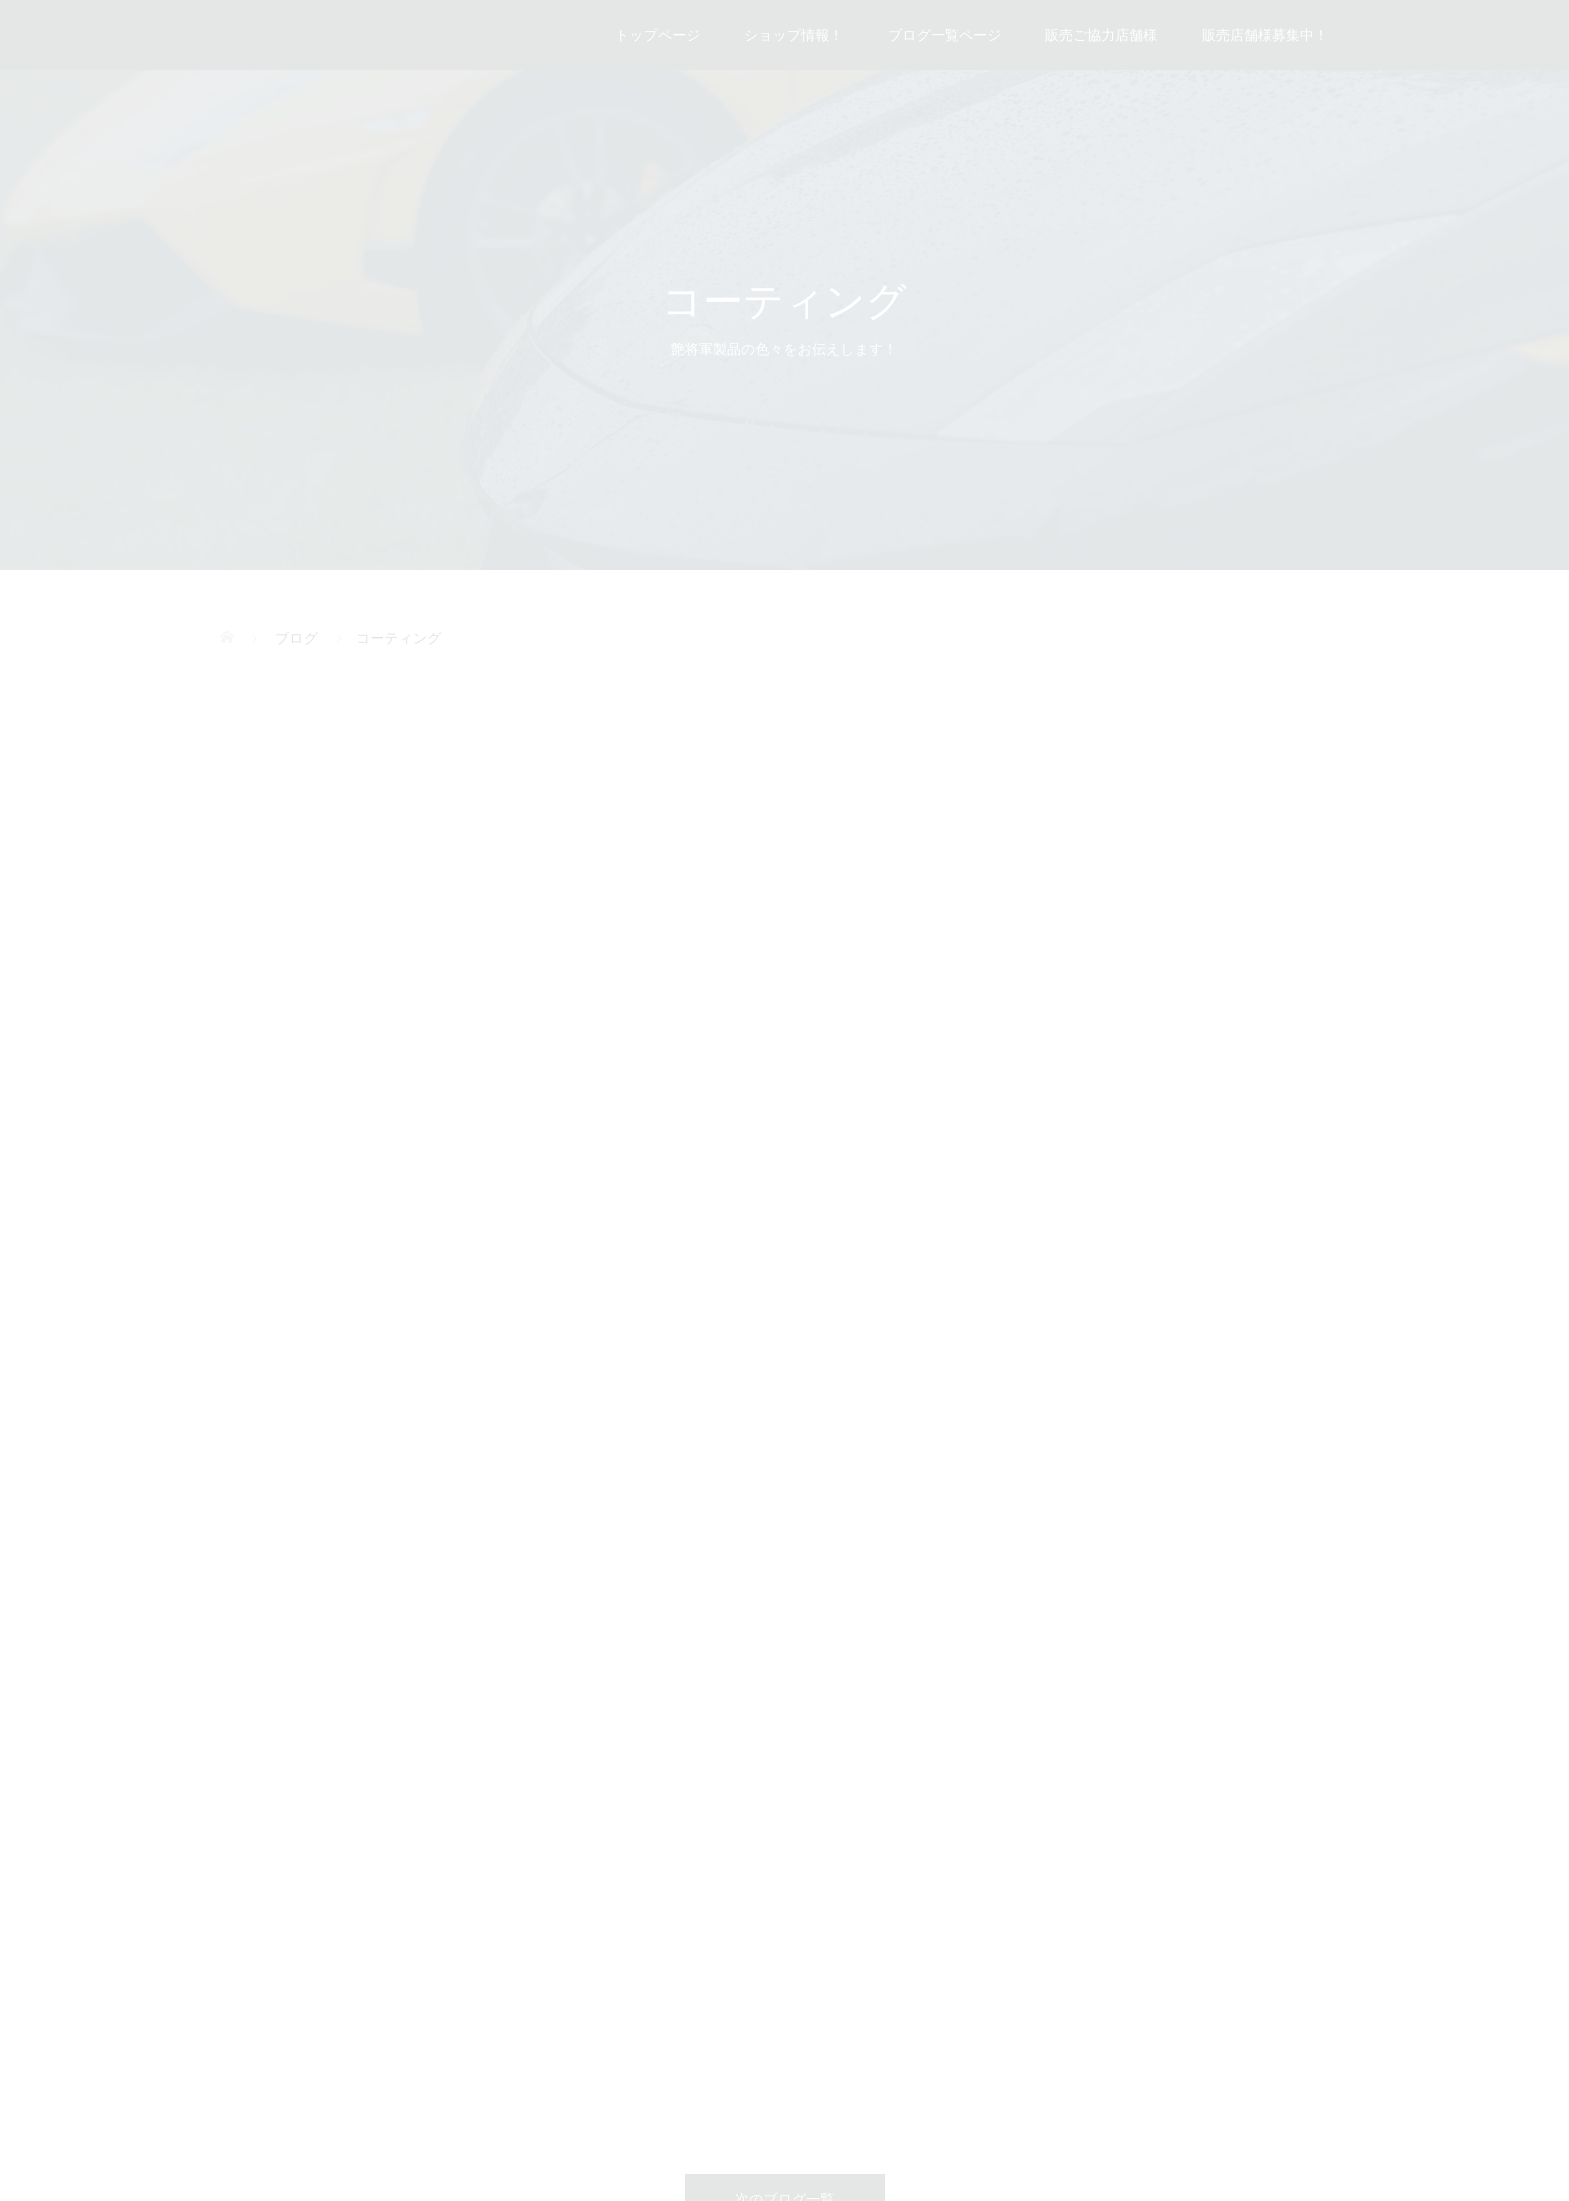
import math
import cairocffi as cairo

surface = cairo.ImageSurface(cairo.FORMAT_RGB24, 1569, 2201)
cr = cairo.Context(surface)
options = cairo.FontOptions()
options.set_hint_metrics(cairo.HINT_METRICS_OFF)
options.set_hint_style(cairo.HINT_STYLE_NONE)
cr.set_font_options(options)
cr.set_miter_limit(4)


def use_color(code):
    cr.set_source_rgb(*(v / 255 for v in bytes.fromhex(code[-6:])))


def picture(path, x, y, w, h):
    cr.save()
    cr.set_source_surface(cairo.ImageSurface.create_from_png(path), x, y)
    cr.rectangle(x, y, w, h)
    cr.fill()
    cr.restore()


use_color("#ffffff")
cr.paint()
use_color("#e5e6e6")
cr.rectangle(0, 0, 1569, 70)
cr.fill()
cr.select_font_face("WenQuanYi Zen Hei Medium")
cr.set_font_size(14)
use_color("#ffffff")
cr.move_to(615, 40)
cr.show_text("トップページ")
cr.move_to(744, 40)
cr.show_text("ショップ情報！")
cr.move_to(888, 40)
cr.show_text("ブログ一覧ページ")
cr.move_to(1045, 40)
cr.show_text("販売ご協力店舗様")
cr.move_to(1202, 40)
cr.show_text("販売店舗様募集中！")
picture("img3.png", 0, 70, 1569, 500)
cr.set_font_size(40)
cr.move_to(662, 315)
cr.show_text("コーティング")
cr.set_font_size(14)
cr.move_to(671, 354)
cr.show_text("艶将軍製品の色々をお伝えします！")
picture("img1.png", 220, 630, 14, 13)
picture("img2.png", 252, 634, 5, 9)
use_color("#e3e3e3")
cr.move_to(275, 643)
cr.show_text("ブログ")
picture("img2.png", 337, 634, 5, 9)
cr.move_to(356, 643)
cr.show_text("コーティング")
use_color("#e5e6e6")
cr.rectangle(685, 2174, 200, 27)
cr.fill()
use_color("#ffffff")
cr.move_to(735, 2204)
cr.show_text("次のブログ一覧")
surface.write_to_png("result.png")
